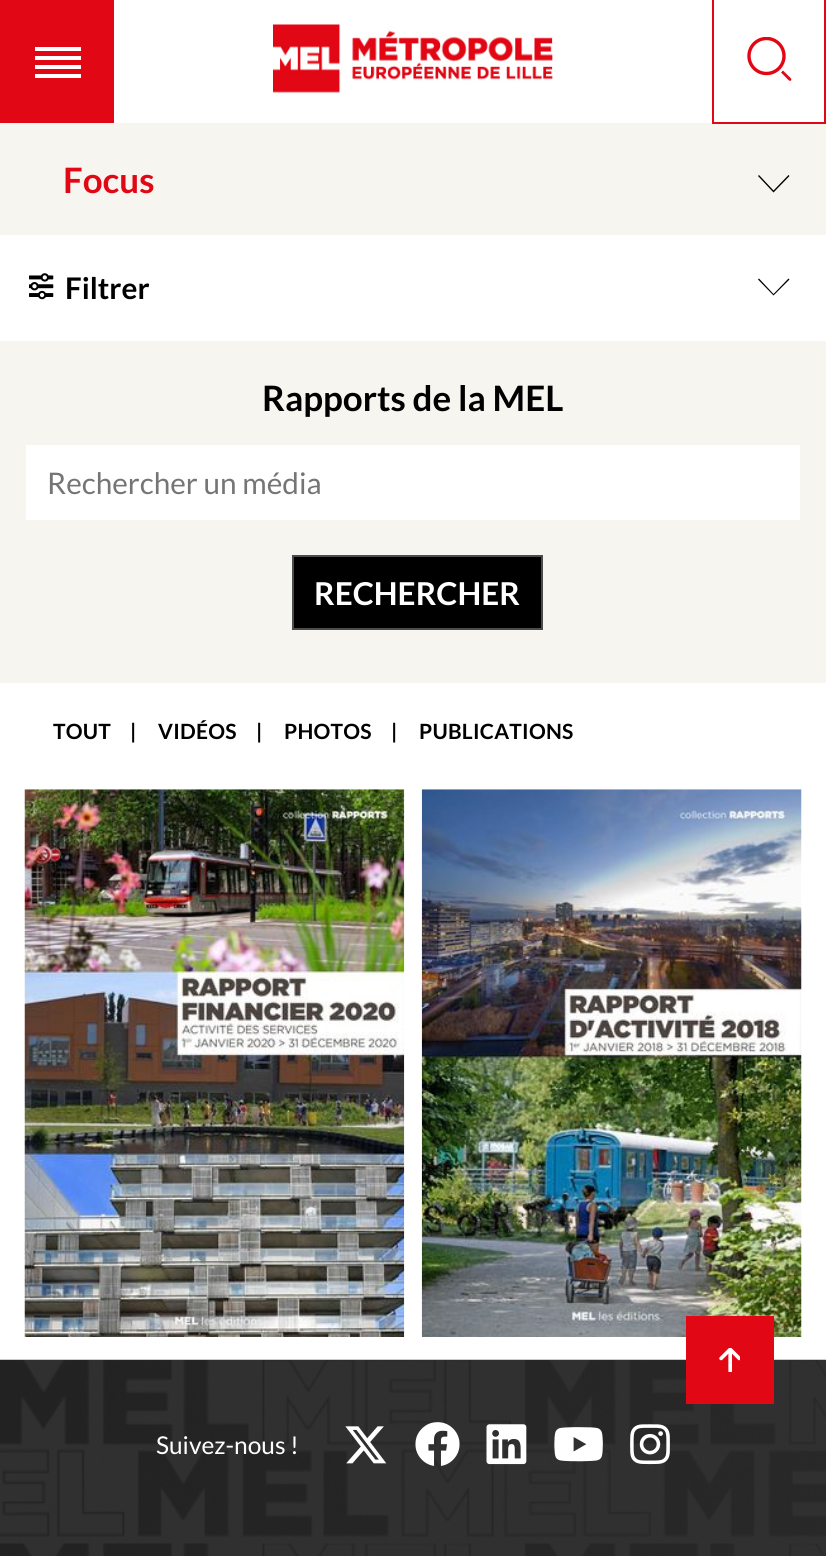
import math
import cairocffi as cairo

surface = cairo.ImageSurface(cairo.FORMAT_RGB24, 826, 1556)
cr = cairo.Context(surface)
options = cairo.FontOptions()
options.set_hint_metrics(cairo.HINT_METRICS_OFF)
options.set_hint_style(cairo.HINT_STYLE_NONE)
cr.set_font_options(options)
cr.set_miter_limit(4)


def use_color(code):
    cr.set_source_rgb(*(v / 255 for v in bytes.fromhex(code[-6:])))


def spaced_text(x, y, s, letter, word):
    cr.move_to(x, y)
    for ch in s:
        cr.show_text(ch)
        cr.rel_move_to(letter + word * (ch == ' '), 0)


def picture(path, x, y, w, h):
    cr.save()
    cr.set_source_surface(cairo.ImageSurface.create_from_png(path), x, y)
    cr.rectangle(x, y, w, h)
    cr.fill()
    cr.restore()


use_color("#ffffff")
cr.paint()
use_color("#e20714")
cr.rectangle(0, 0, 114, 123)
cr.fill()
use_color("#ffffff")
cr.rectangle(35, 47, 46, 4)
cr.fill()
cr.rectangle(35, 56, 46, 4)
cr.fill()
cr.rectangle(35, 65, 46, 4)
cr.fill()
cr.rectangle(35, 74, 46, 4)
cr.fill()
picture("img1.png", 273, 24, 280, 69)
use_color("#f7f5f0")
cr.rectangle(0, 123, 826, 112)
cr.fill()
cr.rectangle(713, -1, 112, 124)
use_color("#e20714")
cr.stroke()
cr.set_fill_rule(cairo.FILL_RULE_EVEN_ODD)
cr.new_path()
cr.move_to(781, 72.5)
cr.line_to(783, 70.5)
cr.line_to(788.5, 76)
cr.curve_to(789, 76.5, 792.5, 79, 791, 80.5)
cr.curve_to(789.5, 82, 787, 78.5, 786.5, 78)
cr.close_path()
cr.fill()
cr.save()
cr.set_fill_rule(cairo.FILL_RULE_WINDING)
cr.rectangle(747, 37, 44, 44)
cr.clip()
cr.arc(766.5, 56, 17.5, 0, 2 * math.pi)
cr.set_line_width(3.4)
cr.stroke()
cr.restore()
cr.select_font_face("Lato", cairo.FONT_SLANT_NORMAL, cairo.FONT_WEIGHT_BOLD)
cr.set_font_size(35)
cr.move_to(63, 193)
cr.show_text("Focus")
use_color("#000000")
cr.set_fill_rule(cairo.FILL_RULE_WINDING)
cr.new_path()
cr.move_to(759, 175)
cr.line_to(773.5, 190.5)
cr.line_to(788.5, 175)
cr.line_to(789.5, 176)
cr.line_to(773.5, 192.5)
cr.line_to(758, 176)
cr.close_path()
cr.fill()
picture("img2.png", 29, 273, 25, 27)
cr.set_font_size(29.75)
cr.move_to(65, 299)
cr.show_text("Filtrer")
cr.new_path()
cr.move_to(759, 278.5)
cr.line_to(773.5, 294)
cr.line_to(788.5, 278.5)
cr.line_to(789.5, 279.5)
cr.line_to(773.5, 295.5)
cr.line_to(758, 279.5)
cr.close_path()
cr.fill()
use_color("#f7f5f0")
cr.rectangle(0, 341, 826, 342)
cr.fill()
cr.set_font_size(35)
use_color("#000000")
cr.move_to(262, 411)
cr.show_text("Rapports de la MEL")
use_color("#ffffff")
cr.rectangle(26, 445, 774, 75)
cr.fill()
cr.select_font_face("Lato")
cr.set_font_size(29.75)
use_color("#757575")
cr.move_to(47, 494)
cr.show_text("Rechercher un média")
use_color("#000000")
cr.rectangle(293, 556, 249, 73)
cr.fill_preserve()
use_color("#4c4c4c")
cr.stroke()
cr.select_font_face("Lato", cairo.FONT_SLANT_NORMAL, cairo.FONT_WEIGHT_BOLD)
cr.set_font_size(31.5)
use_color("#ffffff")
cr.move_to(314, 605)
cr.show_text("RECHERCHER")
cr.set_font_size(21)
use_color("#000000")
spaced_text(53, 739, "TOUT", 0.25, 0)
spaced_text(130, 739, "|", 0.25, 0)
spaced_text(158, 739, "VIDÉOS", 0.25, 0)
spaced_text(256, 739, "|", 0.25, 0)
spaced_text(284, 739, "PHOTOS", 0.25, 0)
spaced_text(391, 739, "|", 0.25, 0)
spaced_text(419, 739, "PUBLICATIONS", 0.25, 0)
picture("img3.png", 24, 789, 381, 548)
picture("img4.png", 421, 789, 381, 548)
picture("img5.png", 0, 1359, 826, 197)
use_color("#e20714")
cr.rectangle(686, 1316, 88, 88)
cr.fill()
picture("img6.png", 719, 1348, 21, 24)
cr.select_font_face("Lato")
cr.set_font_size(24.5)
use_color("#ffffff")
cr.move_to(156, 1454)
cr.show_text("Suivez-nous !")
picture("img7.png", 345, 1426, 42, 38)
picture("img8.png", 415, 1422, 45, 44)
picture("img9.png", 486, 1424, 41, 41)
picture("img10.png", 554, 1427, 49, 35)
picture("img11.png", 630, 1424, 40, 41)
use_color("#2b2b2b")
cr.rectangle(692, 1555, 1, 1)
cr.fill()
surface.write_to_png("result.png")
